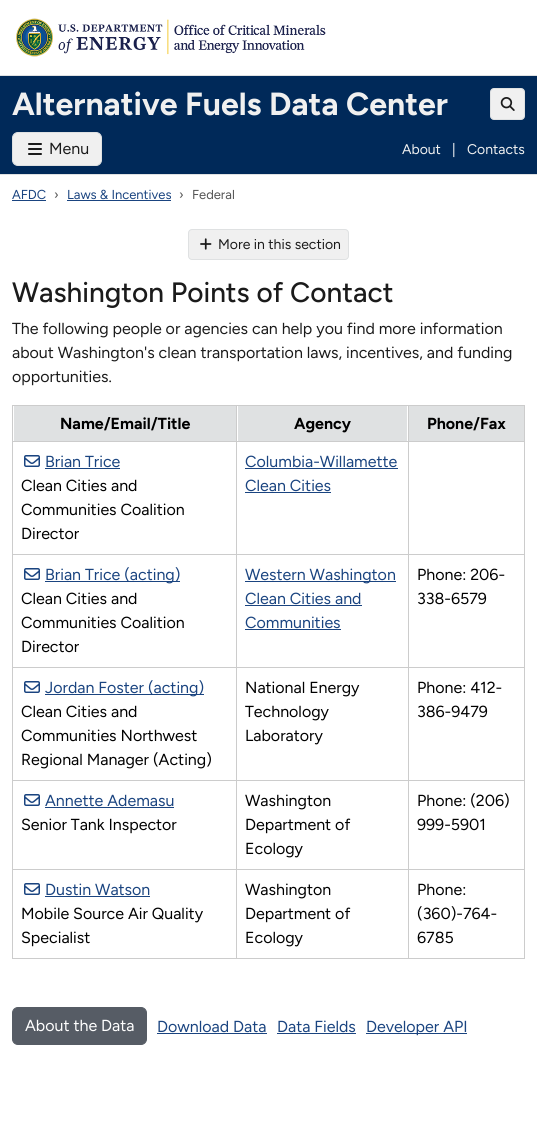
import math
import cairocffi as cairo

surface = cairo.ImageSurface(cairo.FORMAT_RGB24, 537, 1138)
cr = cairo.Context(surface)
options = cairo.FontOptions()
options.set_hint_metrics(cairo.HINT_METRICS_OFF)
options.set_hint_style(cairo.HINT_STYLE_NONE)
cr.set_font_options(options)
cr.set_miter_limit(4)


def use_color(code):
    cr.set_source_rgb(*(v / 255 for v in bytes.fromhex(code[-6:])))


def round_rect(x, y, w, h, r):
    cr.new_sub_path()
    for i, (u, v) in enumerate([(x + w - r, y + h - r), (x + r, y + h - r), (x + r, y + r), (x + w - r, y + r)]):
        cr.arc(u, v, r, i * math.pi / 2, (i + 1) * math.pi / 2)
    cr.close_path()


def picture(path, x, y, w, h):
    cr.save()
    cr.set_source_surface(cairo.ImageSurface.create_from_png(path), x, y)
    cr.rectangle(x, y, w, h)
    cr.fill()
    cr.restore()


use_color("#ffffff")
cr.paint()
picture("img1.png", 16, 18, 310, 39)
use_color("#002959")
cr.rectangle(0, 76, 537, 98)
cr.fill()
use_color("#dfe1e2")
cr.rectangle(0, 75, 537, 1)
cr.fill()
cr.rectangle(0, 174, 537, 1)
cr.fill()
cr.select_font_face("Figtree", cairo.FONT_SLANT_NORMAL, cairo.FONT_WEIGHT_BOLD)
cr.set_font_size(32)
use_color("#f0f0f0")
cr.move_to(12, 115)
cr.show_text("Alternative Fuels Data Center")
round_rect(490.5, 88.5, 34, 31, 3.5)
cr.fill_preserve()
use_color("#dfe1e2")
cr.set_line_width(1)
cr.stroke()
picture("img2.png", 500, 97, 15, 14)
use_color("#f0f0f0")
round_rect(12.5, 132.5, 89, 33, 5.5)
cr.fill_preserve()
use_color("#dfe1e2")
cr.stroke()
picture("img3.png", 28, 143, 14, 12)
cr.select_font_face("Figtree")
cr.set_font_size(16)
use_color("#1b1b1b")
cr.move_to(49, 154)
cr.show_text("Menu")
cr.set_font_size(14)
use_color("#f0f0f0")
cr.move_to(402, 154)
cr.show_text("About")
use_color("#ffffff")
cr.move_to(452, 154)
cr.show_text("|")
use_color("#f0f0f0")
cr.move_to(467, 154)
cr.show_text("Contacts")
cr.set_font_size(13)
use_color("#1a4480")
cr.move_to(12, 199)
cr.show_text("AFDC")
cr.rectangle(12, 200, 34, 1)
cr.fill()
use_color("#545454")
cr.move_to(54, 199)
cr.show_text("›")
use_color("#1a4480")
cr.move_to(67, 199)
cr.show_text("Laws & Incentives")
cr.rectangle(67, 200, 104, 1)
cr.fill()
use_color("#545454")
cr.move_to(179, 199)
cr.show_text("›")
cr.move_to(192, 199)
cr.show_text("Federal")
use_color("#f0f0f0")
round_rect(188.5, 229.5, 160, 30, 3.5)
cr.fill_preserve()
use_color("#dfe1e2")
cr.stroke()
picture("img4.png", 200, 238, 12, 12)
cr.set_font_size(14)
use_color("#1b1b1b")
cr.move_to(218, 249)
cr.show_text("More in this section")
cr.select_font_face("Figtree Medium")
cr.set_font_size(28)
cr.move_to(12, 302)
cr.show_text("Washington Points of Contact")
cr.select_font_face("Figtree")
cr.set_font_size(16)
cr.move_to(12, 334)
cr.show_text("The following people or agencies can help you find more information")
cr.move_to(12, 358)
cr.show_text("about Washington's clean transportation laws, incentives, and funding")
cr.move_to(12, 382)
cr.show_text("opportunities.")
use_color("#cccccc")
cr.rectangle(12, 405, 513, 1)
cr.fill()
use_color("#dfe1e2")
cr.rectangle(14, 406, 222, 35)
cr.fill()
cr.select_font_face("Figtree", cairo.FONT_SLANT_NORMAL, cairo.FONT_WEIGHT_BOLD)
use_color("#000000")
cr.move_to(60, 429)
cr.show_text("Name/Email/Title")
use_color("#dfe1e2")
cr.rectangle(238, 406, 169, 35)
cr.fill()
use_color("#000000")
cr.move_to(294, 429)
cr.show_text("Agency")
use_color("#dfe1e2")
cr.rectangle(409, 406, 115, 35)
cr.fill()
use_color("#000000")
cr.move_to(427, 429)
cr.show_text("Phone/Fax")
use_color("#cccccc")
cr.rectangle(12, 441, 513, 1)
cr.fill()
picture("img5.png", 24, 455, 16, 12)
cr.select_font_face("Figtree")
use_color("#1a4480")
cr.move_to(45, 467)
cr.show_text("Brian Trice")
cr.rectangle(45, 468, 75, 1)
cr.fill()
use_color("#000000")
cr.move_to(21, 491)
cr.show_text("Clean Cities and")
cr.move_to(21, 515)
cr.show_text("Communities Coalition")
cr.move_to(21, 539)
cr.show_text("Director")
use_color("#1a4480")
cr.move_to(245, 467)
cr.show_text("Columbia-Willamette")
cr.rectangle(245, 468, 153, 1)
cr.fill()
cr.move_to(245, 491)
cr.show_text("Clean Cities")
cr.rectangle(245, 492, 86, 1)
cr.fill()
use_color("#cccccc")
cr.rectangle(12, 554, 513, 1)
cr.fill()
picture("img5.png", 24, 568, 16, 12)
use_color("#1a4480")
cr.rectangle(45, 581, 135, 1)
cr.fill()
cr.move_to(45, 580)
cr.show_text("Brian Trice (acting)")
use_color("#000000")
cr.move_to(21, 604)
cr.show_text("Clean Cities and")
cr.move_to(21, 628)
cr.show_text("Communities Coalition")
cr.move_to(21, 652)
cr.show_text("Director")
use_color("#1a4480")
cr.rectangle(245, 581, 151, 1)
cr.fill()
cr.move_to(245, 580)
cr.show_text("Western Washington")
cr.move_to(245, 604)
cr.show_text("Clean Cities and")
cr.rectangle(245, 605, 117, 1)
cr.fill()
cr.move_to(245, 628)
cr.show_text("Communities")
cr.rectangle(245, 629, 96, 1)
cr.fill()
use_color("#000000")
cr.move_to(417, 580)
cr.show_text("Phone: 206-")
cr.move_to(417, 604)
cr.show_text("338-6579")
use_color("#cccccc")
cr.rectangle(12, 667, 513, 1)
cr.fill()
picture("img5.png", 24, 681, 16, 12)
use_color("#1a4480")
cr.rectangle(45, 694, 159, 1)
cr.fill()
cr.move_to(45, 693)
cr.show_text("Jordan Foster (acting)")
use_color("#000000")
cr.move_to(21, 717)
cr.show_text("Clean Cities and")
cr.move_to(21, 741)
cr.show_text("Communities Northwest")
cr.move_to(21, 765)
cr.show_text("Regional Manager (Acting)")
cr.move_to(245, 693)
cr.show_text("National Energy")
cr.move_to(245, 717)
cr.show_text("Technology")
cr.move_to(245, 741)
cr.show_text("Laboratory")
cr.move_to(417, 693)
cr.show_text("Phone: 412-")
cr.move_to(417, 717)
cr.show_text("386-9479")
use_color("#cccccc")
cr.rectangle(12, 780, 513, 1)
cr.fill()
picture("img5.png", 24, 794, 16, 12)
use_color("#1a4480")
cr.move_to(45, 806)
cr.show_text("Annette Ademasu")
cr.rectangle(45, 807, 129, 1)
cr.fill()
use_color("#000000")
cr.move_to(21, 830)
cr.show_text("Senior Tank Inspector")
cr.move_to(245, 806)
cr.show_text("Washington")
cr.move_to(245, 830)
cr.show_text("Department of")
cr.move_to(245, 854)
cr.show_text("Ecology")
cr.move_to(417, 806)
cr.show_text("Phone: (206)")
cr.move_to(417, 830)
cr.show_text("999-5901")
use_color("#cccccc")
cr.rectangle(12, 869, 513, 1)
cr.fill()
cr.rectangle(12, 958, 513, 1)
cr.fill()
cr.rectangle(12, 405, 1, 554)
cr.fill()
picture("img5.png", 24, 883, 16, 12)
use_color("#1a4480")
cr.move_to(45, 895)
cr.show_text("Dustin Watson")
cr.rectangle(45, 896, 105, 1)
cr.fill()
use_color("#000000")
cr.move_to(21, 919)
cr.show_text("Mobile Source Air Quality")
cr.move_to(21, 943)
cr.show_text("Specialist")
use_color("#cccccc")
cr.rectangle(236, 405, 1, 554)
cr.fill()
use_color("#000000")
cr.move_to(245, 895)
cr.show_text("Washington")
cr.move_to(245, 919)
cr.show_text("Department of")
cr.move_to(245, 943)
cr.show_text("Ecology")
use_color("#cccccc")
cr.rectangle(524, 405, 1, 554)
cr.fill()
cr.rectangle(408, 405, 1, 554)
cr.fill()
use_color("#000000")
cr.move_to(417, 895)
cr.show_text("Phone:")
cr.move_to(417, 919)
cr.show_text("(360)-764-")
cr.move_to(417, 943)
cr.show_text("6785")
use_color("#565c65")
round_rect(12.5, 1007.5, 134, 37, 5.5)
cr.fill_preserve()
cr.stroke()
use_color("#ffffff")
cr.move_to(25, 1031)
cr.show_text("About the Data")
use_color("#1a4480")
cr.move_to(157, 1032)
cr.show_text("Download Data")
cr.rectangle(157, 1033, 110, 1)
cr.fill()
cr.move_to(277, 1032)
cr.show_text("Data Fields")
cr.rectangle(277, 1033, 79, 1)
cr.fill()
cr.rectangle(366, 1033, 101, 1)
cr.fill()
cr.move_to(366, 1032)
cr.show_text("Developer API")
surface.write_to_png("result.png")
